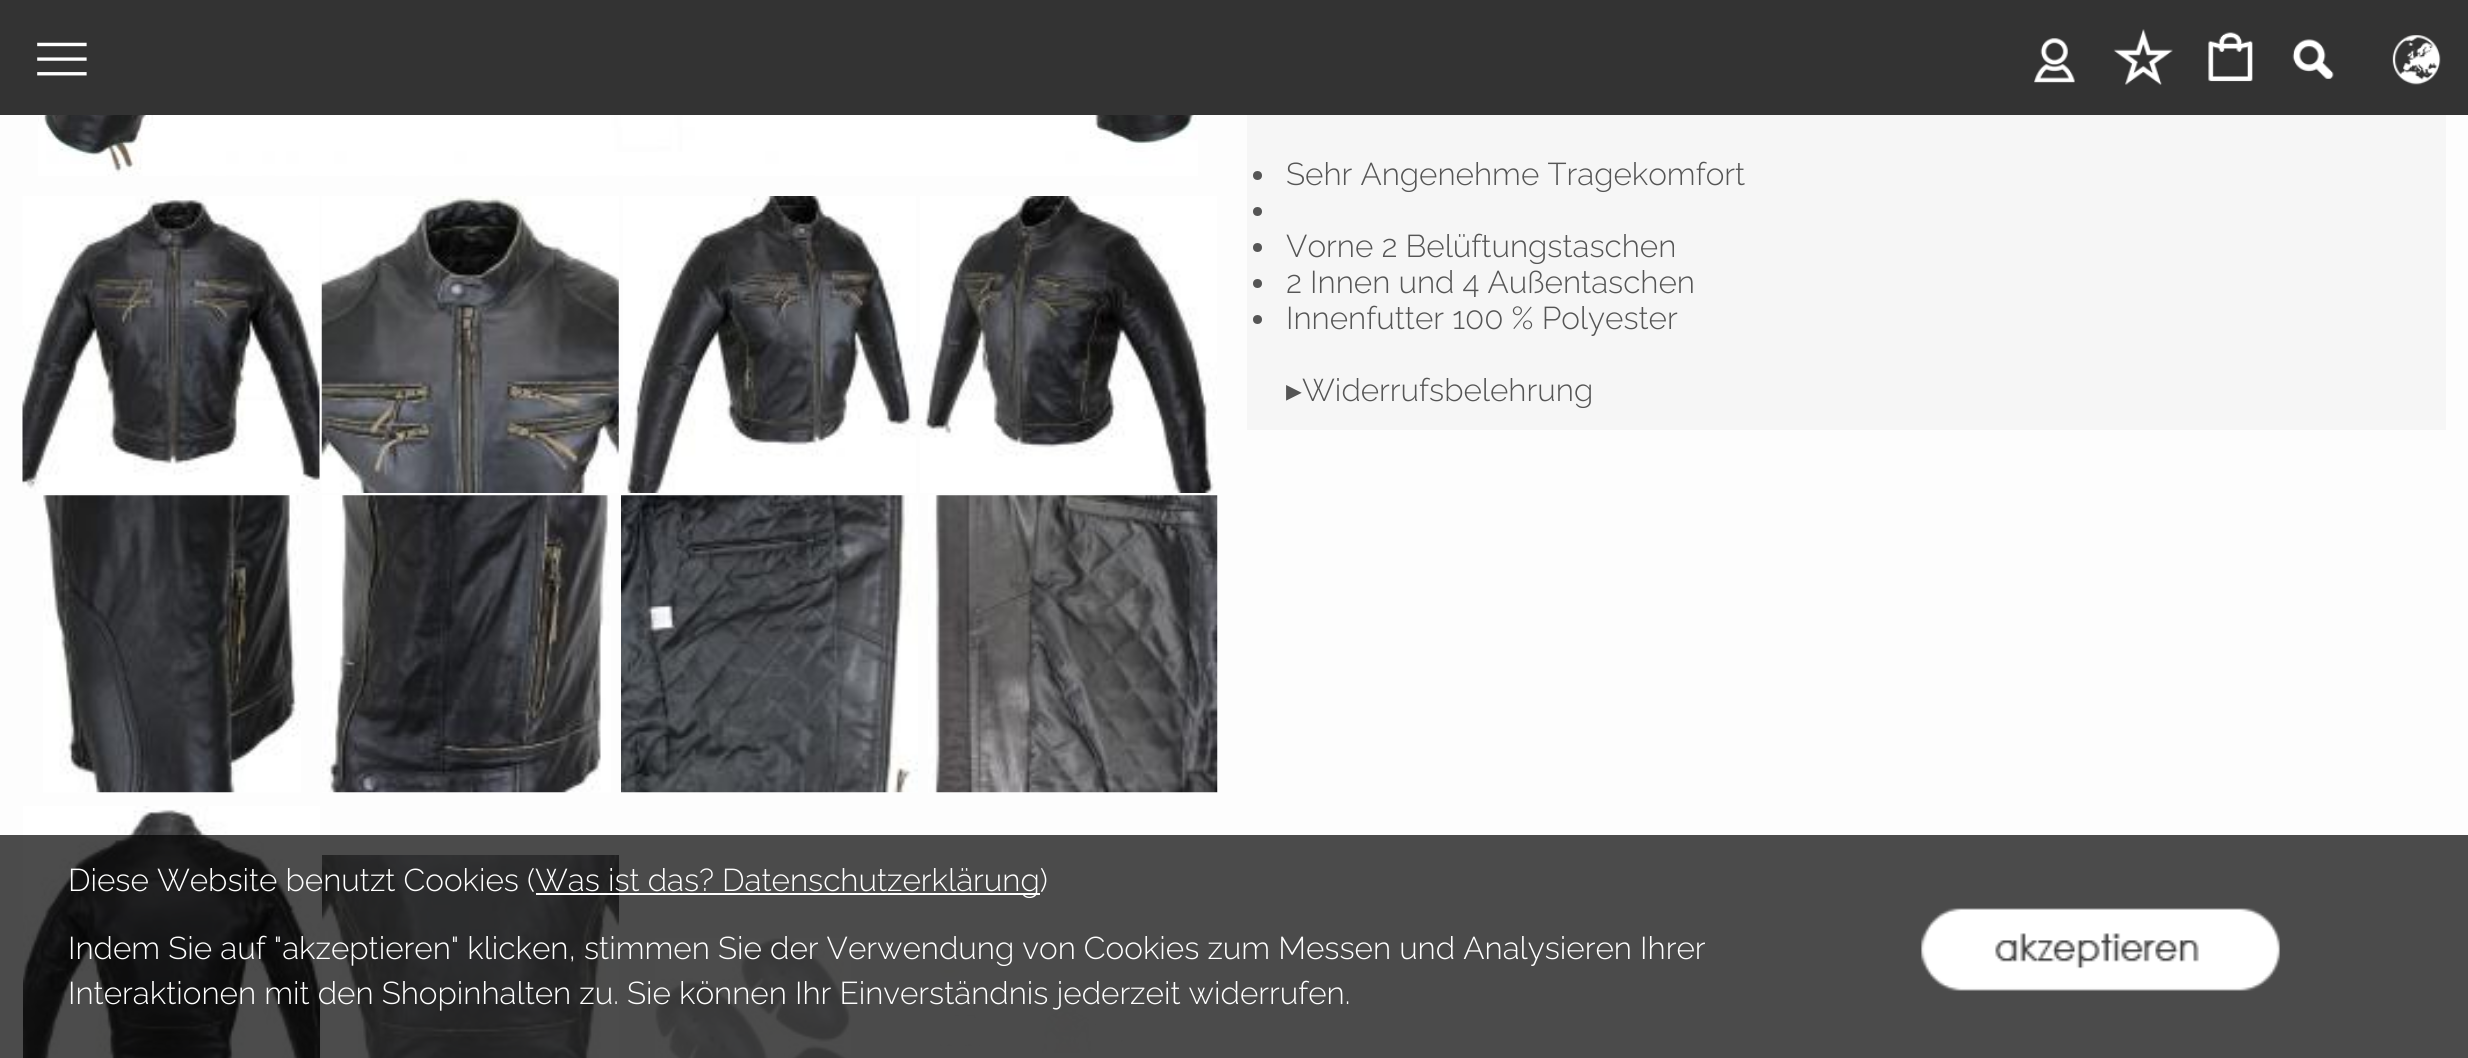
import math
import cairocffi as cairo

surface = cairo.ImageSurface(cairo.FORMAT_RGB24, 2468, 1058)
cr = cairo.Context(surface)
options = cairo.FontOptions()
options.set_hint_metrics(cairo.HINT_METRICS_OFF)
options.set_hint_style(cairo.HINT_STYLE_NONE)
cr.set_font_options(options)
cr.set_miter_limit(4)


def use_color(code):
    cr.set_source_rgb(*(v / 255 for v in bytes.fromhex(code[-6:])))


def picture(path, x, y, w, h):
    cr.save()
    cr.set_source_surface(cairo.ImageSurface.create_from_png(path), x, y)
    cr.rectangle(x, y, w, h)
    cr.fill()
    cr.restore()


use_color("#fdfdfd")
cr.paint()
use_color("#333333")
cr.rectangle(0, 0, 2468, 115)
cr.fill()
picture("img1.png", 37, 42, 50, 34)
picture("img2.png", 2034, 38, 41, 45)
picture("img3.png", 2113, 29, 60, 56)
picture("img4.png", 2208, 32, 45, 50)
picture("img5.png", 2292, 39, 42, 40)
picture("img6.png", 2392, 35, 49, 50)
picture("img7.png", 38, 115, 1160, 61)
picture("img8.png", 22, 196, 298, 297)
picture("img9.png", 321, 196, 298, 297)
picture("img10.png", 623, 196, 293, 297)
picture("img11.png", 920, 196, 297, 297)
picture("img12.png", 43, 495, 258, 298)
picture("img13.png", 322, 495, 289, 298)
picture("img14.png", 621, 495, 297, 298)
picture("img15.png", 928, 495, 290, 298)
picture("img16.png", 23, 806, 297, 252)
picture("img17.png", 322, 855, 297, 203)
picture("img18.png", 655, 938, 196, 120)
picture("img19.png", 940, 970, 210, 83)
use_color("#f6f6f6")
cr.rectangle(1247, 115, 1199, 315)
cr.fill()
use_color("#555555")
cr.arc(1257.5, 175.5, 4.5, 0, 2 * math.pi)
cr.fill()
cr.select_font_face("Raleway Light")
cr.set_font_size(31.5)
cr.move_to(1286, 185)
cr.show_text("Sehr Angenehme Tragekomfort")
cr.new_path()
cr.arc(1257.5, 211.5, 4.5, 0, 2 * math.pi)
cr.fill()
cr.arc(1257.5, 247.5, 4.5, 0, 2 * math.pi)
cr.fill()
cr.move_to(1286, 257)
cr.show_text("Vorne 2 Belüftungstaschen")
cr.new_path()
cr.arc(1257.5, 283.5, 4.5, 0, 2 * math.pi)
cr.fill()
cr.move_to(1286, 293)
cr.show_text("2 Innen und 4 Außentaschen")
cr.new_path()
cr.arc(1257.5, 319.5, 4.5, 0, 2 * math.pi)
cr.fill()
cr.move_to(1286, 329)
cr.show_text("Innenfutter 100 % Polyester")
cr.select_font_face("DejaVu Sans")
cr.move_to(1286, 401)
cr.show_text("▸")
cr.select_font_face("Raleway Light")
cr.move_to(1302, 401)
cr.show_text("Widerrufsbelehrung")
cr.set_source_rgba(0, 0, 0, 0.7)
cr.rectangle(0, 835, 2468, 223)
cr.fill()
use_color("#ffffff")
cr.move_to(68, 891)
cr.show_text("Diese Website benutzt Cookies (")
cr.rectangle(536, 893, 504, 2)
cr.fill()
cr.move_to(535, 891)
cr.show_text("Was ist das? Datenschutzerklärung)")
cr.move_to(68, 959)
cr.show_text("Indem Sie auf \"akzeptieren\" klicken, stimmen Sie der Verwendung von Cookies zum Messen und Analysieren Ihrer")
cr.move_to(68, 1004)
cr.show_text("Interaktionen mit den Shopinhalten zu. Sie können Ihr Einverständnis jederzeit widerrufen.")
picture("img20.png", 1921, 908, 359, 83)
surface.write_to_png("result.png")
